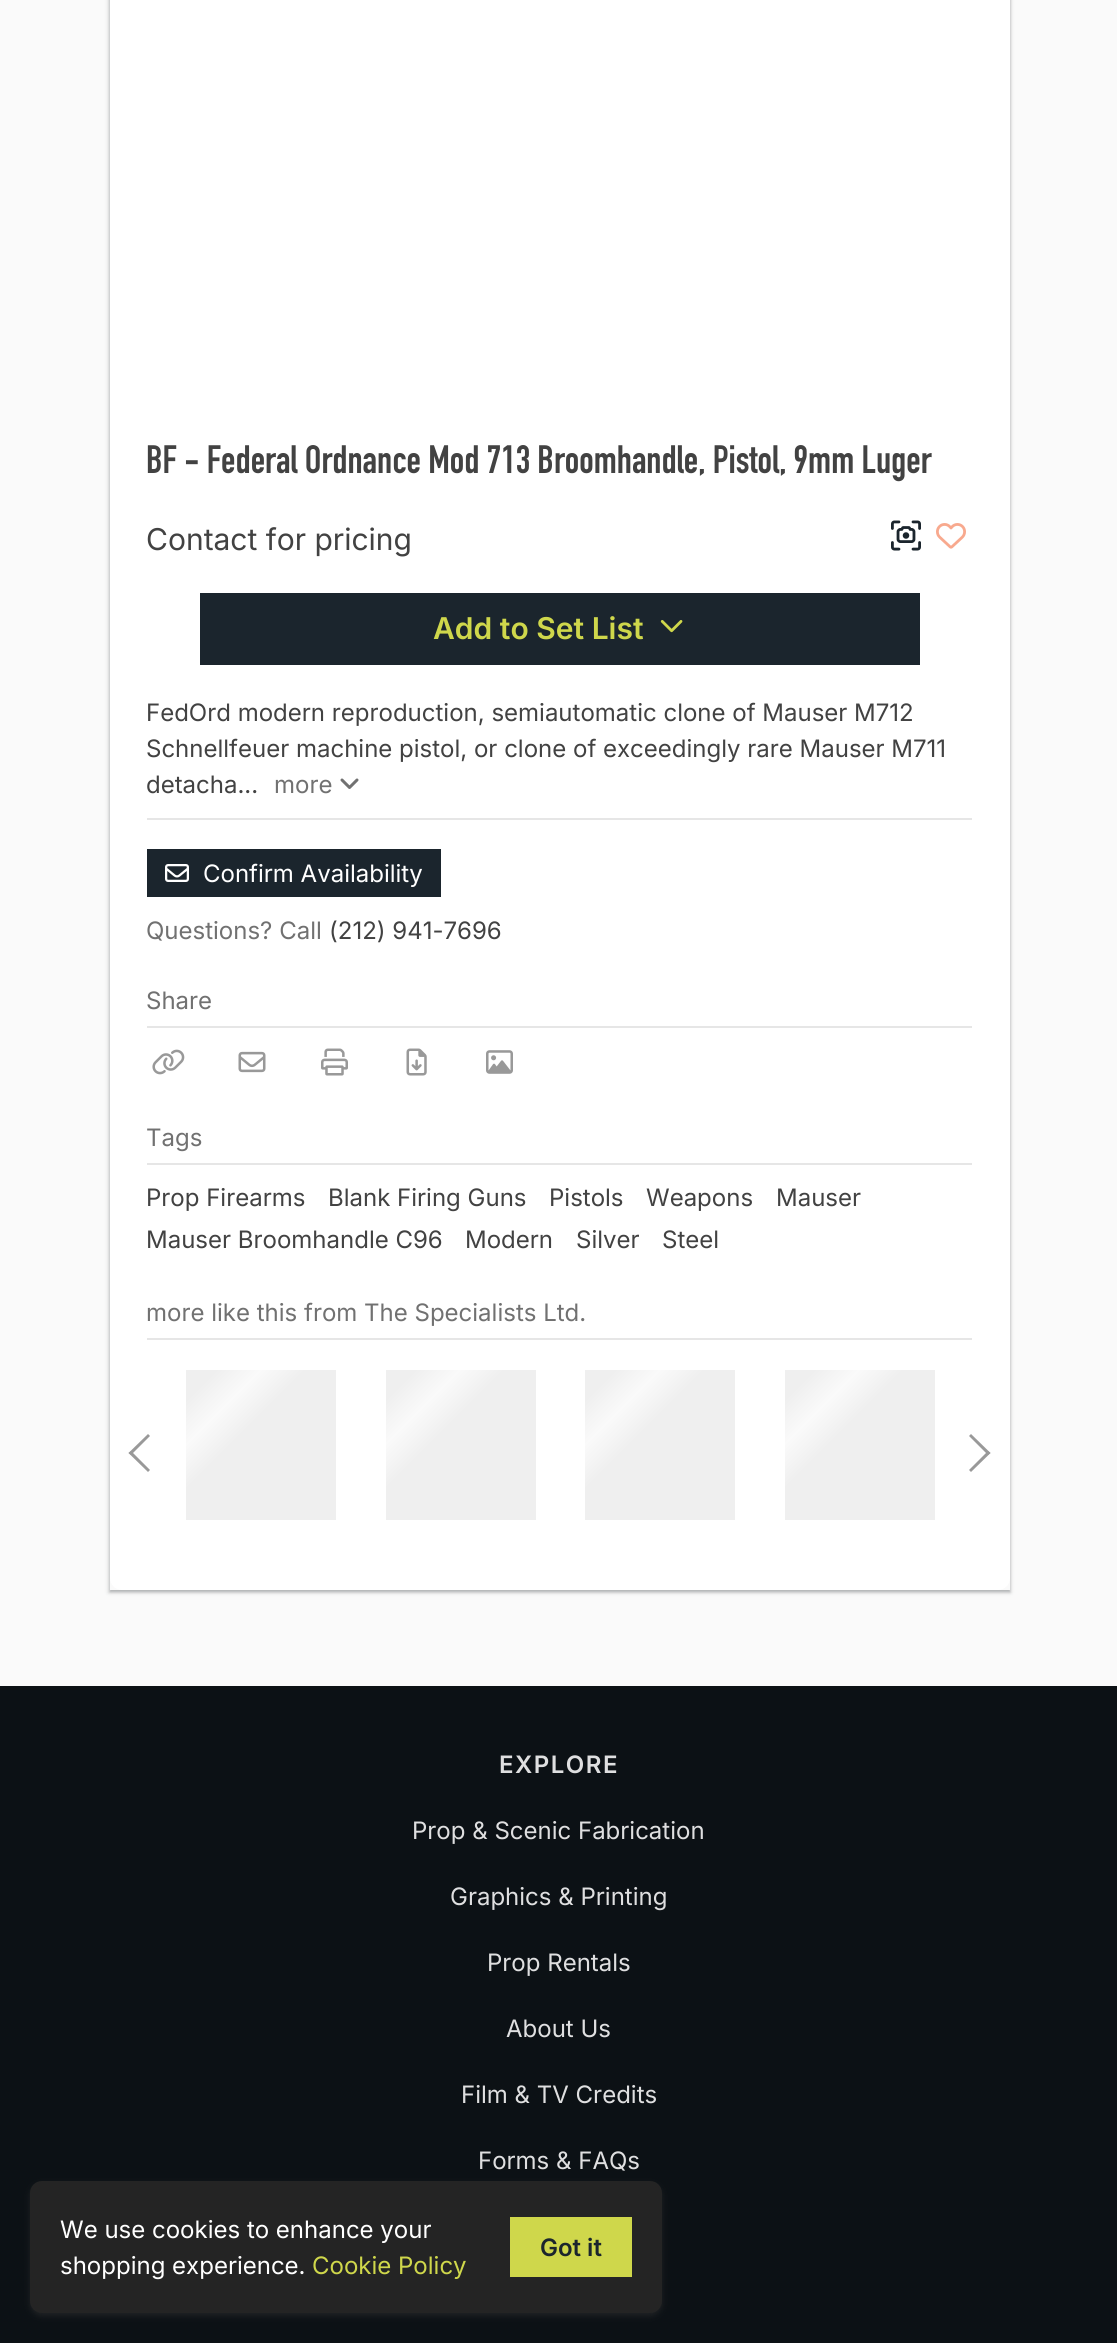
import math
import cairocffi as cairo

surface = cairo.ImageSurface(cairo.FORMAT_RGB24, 1117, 2343)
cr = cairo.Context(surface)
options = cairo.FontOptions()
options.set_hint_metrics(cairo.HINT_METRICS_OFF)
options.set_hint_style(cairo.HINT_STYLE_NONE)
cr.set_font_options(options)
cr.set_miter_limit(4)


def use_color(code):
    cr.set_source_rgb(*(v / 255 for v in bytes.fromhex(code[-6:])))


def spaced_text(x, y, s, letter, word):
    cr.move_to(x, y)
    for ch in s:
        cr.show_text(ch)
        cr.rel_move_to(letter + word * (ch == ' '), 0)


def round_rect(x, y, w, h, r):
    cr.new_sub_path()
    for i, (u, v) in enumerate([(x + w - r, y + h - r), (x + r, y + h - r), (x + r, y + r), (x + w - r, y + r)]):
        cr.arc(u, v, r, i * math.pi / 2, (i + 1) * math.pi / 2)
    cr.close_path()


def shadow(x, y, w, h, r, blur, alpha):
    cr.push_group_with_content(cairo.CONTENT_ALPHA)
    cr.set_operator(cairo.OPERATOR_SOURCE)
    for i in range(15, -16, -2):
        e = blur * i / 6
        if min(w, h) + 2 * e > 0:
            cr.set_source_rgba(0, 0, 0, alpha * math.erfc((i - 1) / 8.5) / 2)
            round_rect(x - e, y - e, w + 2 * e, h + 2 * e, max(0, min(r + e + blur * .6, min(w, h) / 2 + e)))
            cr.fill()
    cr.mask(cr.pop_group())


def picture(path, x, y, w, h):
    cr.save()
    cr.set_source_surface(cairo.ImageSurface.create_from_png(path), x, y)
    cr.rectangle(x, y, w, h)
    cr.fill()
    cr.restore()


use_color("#fafafa")
cr.paint()
cr.save()
cr.set_fill_rule(cairo.FILL_RULE_EVEN_ODD)
cr.new_path()
cr.move_to(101, 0)
cr.line_to(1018, 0)
cr.line_to(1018, 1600)
cr.line_to(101, 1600)
cr.close_path()
cr.move_to(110, -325)
cr.line_to(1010, -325)
cr.line_to(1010, 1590)
cr.line_to(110, 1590)
cr.close_path()
cr.clip()
use_color("#3c4043")
shadow(108, -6, 903, 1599, 0, 2, 0.15)
cr.restore()
cr.save()
cr.set_fill_rule(cairo.FILL_RULE_EVEN_ODD)
cr.new_path()
cr.move_to(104, 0)
cr.line_to(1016, 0)
cr.line_to(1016, 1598)
cr.line_to(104, 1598)
cr.close_path()
cr.move_to(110, -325)
cr.line_to(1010, -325)
cr.line_to(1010, 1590)
cr.line_to(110, 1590)
cr.close_path()
cr.clip()
use_color("#3c4043")
shadow(110, -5, 900, 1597, 0, 1.5, 0.3)
cr.restore()
use_color("#ffffff")
round_rect(110, -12, 900, 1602, 12)
cr.fill()
cr.select_font_face("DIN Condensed", cairo.FONT_SLANT_NORMAL, cairo.FONT_WEIGHT_BOLD)
cr.set_font_size(39)
use_color("#424242")
cr.move_to(146, 473)
cr.show_text("BF - Federal Ordnance Mod 713 Broomhandle, Pistol, 9mm Luger")
cr.select_font_face("Inter")
cr.set_font_size(30)
cr.move_to(146, 550)
cr.show_text("Contact for pricing")
picture("img1.png", 891, 520, 30, 31)
picture("img2.png", 936, 523, 30, 26)
use_color("#1b252d")
cr.rectangle(200, 593, 720, 72)
cr.fill()
cr.select_font_face("Inter SemiBold")
use_color("#cfd74b")
cr.move_to(433, 639)
cr.show_text("Add to Set List")
picture("img3.png", 660, 620, 23, 13)
use_color("#e6e6e6")
cr.rectangle(147, 818, 825, 2)
cr.fill()
cr.select_font_face("Inter")
cr.set_font_size(24)
use_color("#424242")
cr.move_to(146, 721)
cr.show_text("FedOrd modern reproduction, semiautomatic clone of Mauser M712")
cr.move_to(146, 757)
cr.show_text("Schnellfeuer machine pistol, or clone of exceedingly rare Mauser M711")
cr.move_to(146, 793)
cr.show_text("detacha...")
use_color("#717171")
cr.move_to(274, 793)
cr.show_text("more")
picture("img4.png", 340, 778, 19, 11)
use_color("#1b252d")
cr.rectangle(147, 849, 294, 48)
cr.fill()
picture("img5.png", 165, 864, 24, 18)
use_color("#ffffff")
cr.move_to(203, 882)
cr.show_text("Confirm Availability")
use_color("#717171")
cr.move_to(146, 939)
cr.show_text("Questions? Call")
use_color("#424242")
cr.move_to(329, 939)
cr.show_text("(212) 941-7696")
use_color("#e6e6e6")
cr.rectangle(147, 1026, 825, 2)
cr.fill()
use_color("#717171")
cr.move_to(146, 1009)
cr.show_text("Share")
picture("img6.png", 152, 1049, 33, 26)
picture("img7.png", 238, 1051, 28, 22)
picture("img8.png", 321, 1048, 27, 28)
picture("img9.png", 406, 1048, 21, 28)
picture("img10.png", 486, 1050, 27, 24)
use_color("#e6e6e6")
cr.rectangle(147, 1163, 825, 2)
cr.fill()
use_color("#717171")
cr.move_to(146, 1146)
cr.show_text("Tags")
use_color("#424242")
cr.move_to(146, 1206)
cr.show_text("Prop Firearms")
cr.move_to(328, 1206)
cr.show_text("Blank Firing Guns")
cr.move_to(549, 1206)
cr.show_text("Pistols")
cr.move_to(646, 1206)
cr.show_text("Weapons")
cr.move_to(776, 1206)
cr.show_text("Mauser")
cr.move_to(146, 1248)
cr.show_text("Mauser Broomhandle C96")
cr.move_to(465, 1248)
cr.show_text("Modern")
cr.move_to(576, 1248)
cr.show_text("Silver")
cr.move_to(662, 1248)
cr.show_text("Steel")
use_color("#e6e6e6")
cr.rectangle(147, 1338, 825, 2)
cr.fill()
use_color("#717171")
cr.move_to(146, 1321)
cr.show_text("more like this from The Specialists Ltd.")
use_color("#999999")
cr.new_path()
cr.move_to(148, 1472)
cr.line_to(128.5, 1453)
cr.line_to(131, 1451)
cr.line_to(150, 1470)
cr.close_path()
cr.fill()
cr.new_path()
cr.move_to(131, 1455)
cr.line_to(128.5, 1453)
cr.line_to(148, 1434)
cr.line_to(150, 1436)
cr.close_path()
cr.fill()
gradient = cairo.LinearGradient(299, 1557, 74, 1332)
gradient.add_color_stop_rgba(0.4, 0.937, 0.937, 0.937, 1)
gradient.add_color_stop_rgba(0.5, 0.98, 0.98, 0.98, 1)
gradient.add_color_stop_rgba(0.6, 0.937, 0.937, 0.937, 1)
cr.set_source(gradient)
cr.rectangle(186, 1370, 150, 150)
cr.fill()
gradient = cairo.LinearGradient(498, 1557, 273, 1332)
gradient.add_color_stop_rgba(0.4, 0.937, 0.937, 0.937, 1)
gradient.add_color_stop_rgba(0.5, 0.98, 0.98, 0.98, 1)
gradient.add_color_stop_rgba(0.6, 0.937, 0.937, 0.937, 1)
cr.set_source(gradient)
cr.rectangle(386, 1370, 150, 150)
cr.fill()
gradient = cairo.LinearGradient(698, 1557, 473, 1332)
gradient.add_color_stop_rgba(0.4, 0.937, 0.937, 0.937, 1)
gradient.add_color_stop_rgba(0.5, 0.98, 0.98, 0.98, 1)
gradient.add_color_stop_rgba(0.6, 0.937, 0.937, 0.937, 1)
cr.set_source(gradient)
cr.rectangle(585, 1370, 150, 150)
cr.fill()
gradient = cairo.LinearGradient(897, 1557, 672, 1332)
gradient.add_color_stop_rgba(0.4, 0.937, 0.937, 0.937, 1)
gradient.add_color_stop_rgba(0.5, 0.98, 0.98, 0.98, 1)
gradient.add_color_stop_rgba(0.6, 0.937, 0.937, 0.937, 1)
cr.set_source(gradient)
cr.rectangle(785, 1370, 150, 150)
cr.fill()
use_color("#999999")
cr.new_path()
cr.move_to(971, 1434)
cr.line_to(990.5, 1453)
cr.line_to(988, 1455)
cr.line_to(969, 1436)
cr.close_path()
cr.fill()
cr.new_path()
cr.move_to(988, 1451)
cr.line_to(990.5, 1453)
cr.line_to(971, 1472)
cr.line_to(969, 1470)
cr.close_path()
cr.fill()
use_color("#0c1115")
cr.rectangle(0, 1686, 1117, 657)
cr.fill()
cr.select_font_face("Inter SemiBold")
use_color("#dfdfe0")
spaced_text(499, 1773, "EXPLORE", 1.5, 0)
cr.select_font_face("Inter")
cr.move_to(412, 1839)
cr.show_text("Prop & Scenic Fabrication")
cr.move_to(450, 1905)
cr.show_text("Graphics & Printing")
cr.move_to(487, 1971)
cr.show_text("Prop Rentals")
cr.move_to(506, 2037)
cr.show_text("About Us")
cr.move_to(461, 2103)
cr.show_text("Film & TV Credits")
cr.move_to(478, 2169)
cr.show_text("Forms & FAQs")
use_color("#323232")
shadow(30, 2184, 632, 132, 12, 3, 0.5)
use_color("#242424")
round_rect(30, 2181, 632, 132, 12)
cr.fill()
use_color("#ffffff")
cr.move_to(60, 2238)
cr.show_text("We use cookies to enhance your")
cr.move_to(60, 2274)
cr.show_text("shopping experience.")
use_color("#cfd74b")
cr.move_to(312, 2274)
cr.show_text("Cookie Policy")
cr.rectangle(510, 2217, 122, 60)
cr.fill()
cr.select_font_face("Inter SemiBold")
use_color("#1b252d")
cr.move_to(540, 2256)
cr.show_text("Got it")
surface.write_to_png("result.png")
